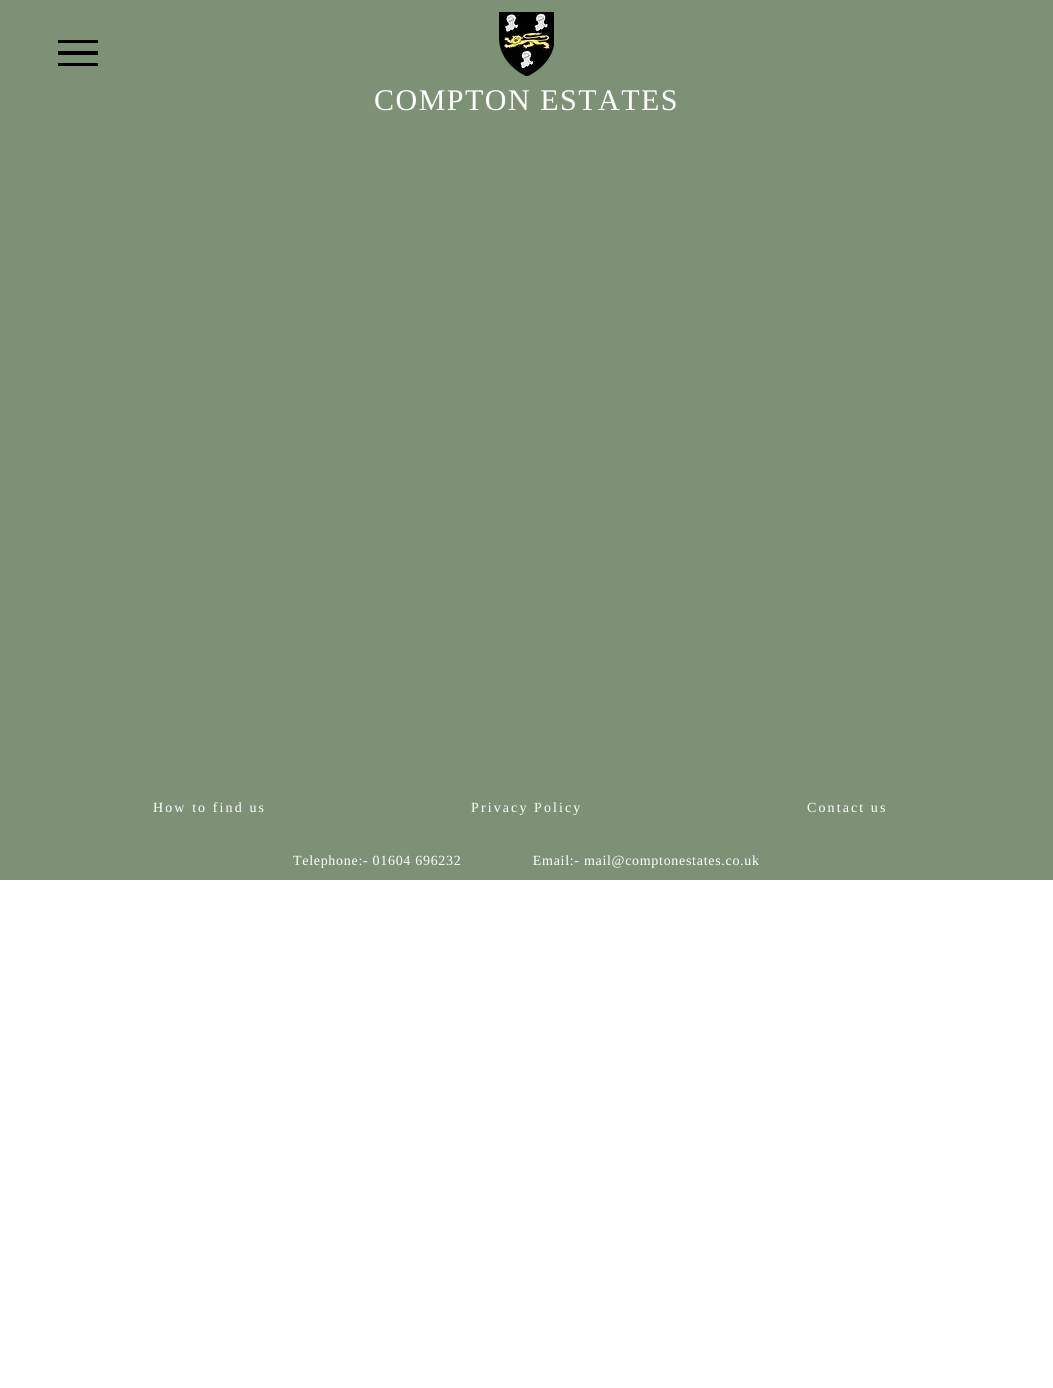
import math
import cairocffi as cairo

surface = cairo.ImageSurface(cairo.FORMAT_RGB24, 1053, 1388)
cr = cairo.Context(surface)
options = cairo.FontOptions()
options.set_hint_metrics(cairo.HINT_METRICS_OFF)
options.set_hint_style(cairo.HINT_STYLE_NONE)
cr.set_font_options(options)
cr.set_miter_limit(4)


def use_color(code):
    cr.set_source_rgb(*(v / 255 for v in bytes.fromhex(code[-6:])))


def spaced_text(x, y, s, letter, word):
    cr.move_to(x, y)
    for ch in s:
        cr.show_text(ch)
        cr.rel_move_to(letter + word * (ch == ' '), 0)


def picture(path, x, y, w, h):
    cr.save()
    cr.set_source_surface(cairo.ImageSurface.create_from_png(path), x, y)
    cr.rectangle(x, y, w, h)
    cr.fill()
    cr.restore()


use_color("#ffffff")
cr.paint()
use_color("#7d9174")
cr.rectangle(0, 0, 1053, 880)
cr.fill()
use_color("#000000")
cr.rectangle(58, 63, 40, 3)
cr.fill()
cr.rectangle(58, 40, 40, 3)
cr.fill()
cr.rectangle(58, 51, 40, 4)
cr.fill()
picture("img1.png", 499, 12, 55, 64)
cr.select_font_face("Liberation Serif")
cr.set_font_size(30)
use_color("#ffffff")
spaced_text(374, 110, "COMPTON ESTATES", 1.5, 0)
cr.set_font_size(14)
spaced_text(153, 812, "How to find us", 2.1, 0)
spaced_text(471, 812, "Privacy Policy", 2.1, 0)
spaced_text(807, 812, "Contact us", 2.1, 0)
spaced_text(293, 865, "Telephone:- 01604 696232                 Email:- mail@comptonestates.co.uk", 0.7, 0)
surface.write_to_png("result.png")
